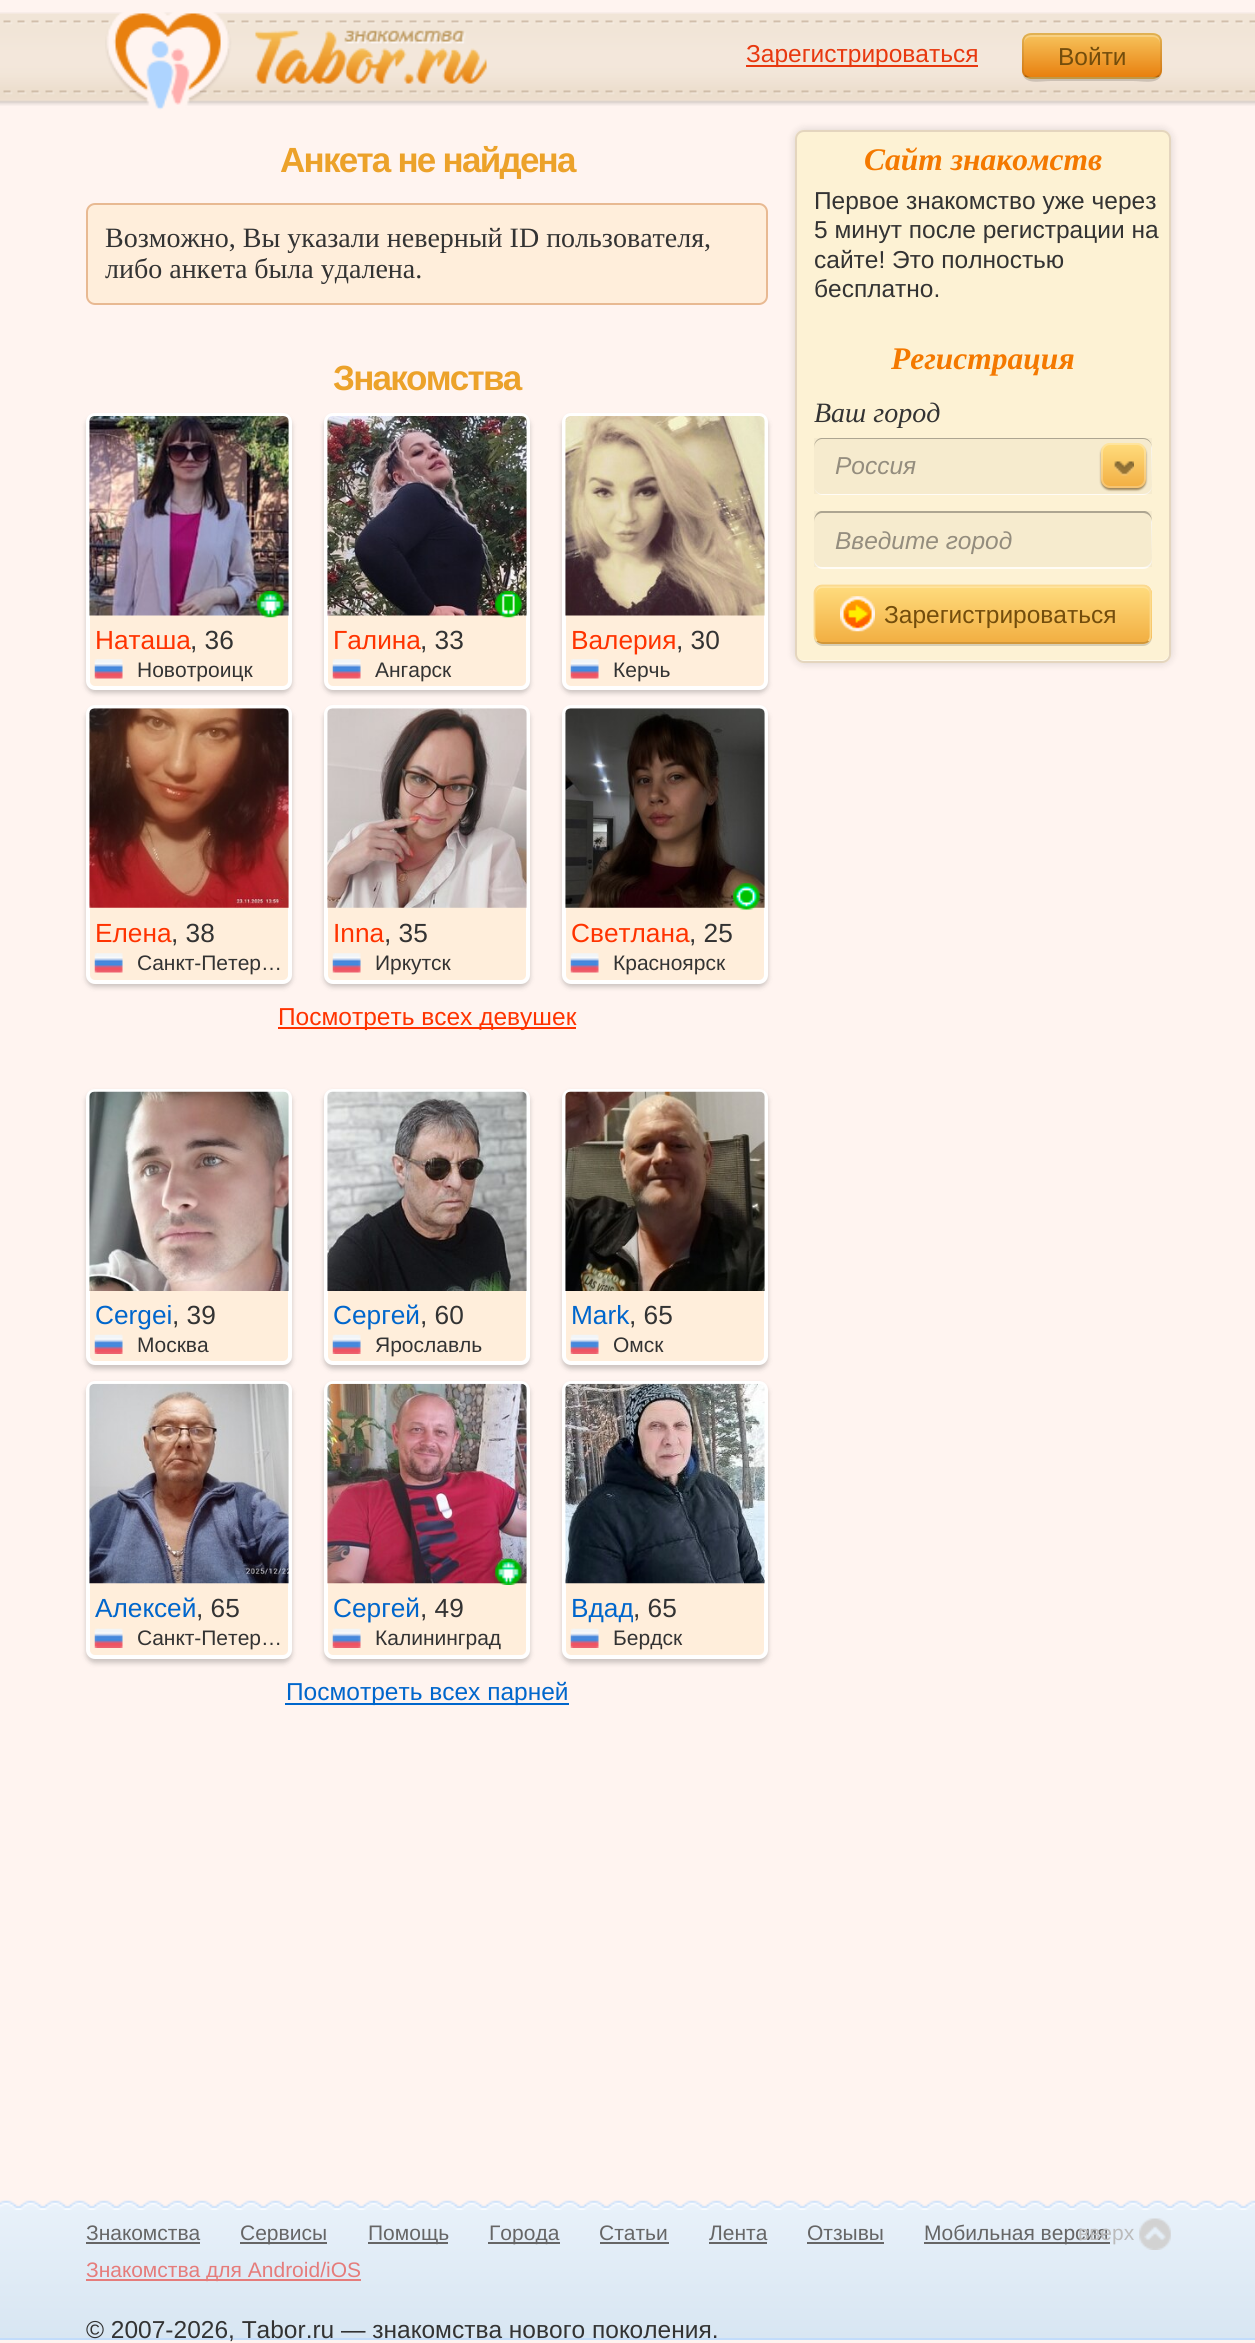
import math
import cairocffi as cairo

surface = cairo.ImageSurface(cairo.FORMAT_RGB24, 1255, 2343)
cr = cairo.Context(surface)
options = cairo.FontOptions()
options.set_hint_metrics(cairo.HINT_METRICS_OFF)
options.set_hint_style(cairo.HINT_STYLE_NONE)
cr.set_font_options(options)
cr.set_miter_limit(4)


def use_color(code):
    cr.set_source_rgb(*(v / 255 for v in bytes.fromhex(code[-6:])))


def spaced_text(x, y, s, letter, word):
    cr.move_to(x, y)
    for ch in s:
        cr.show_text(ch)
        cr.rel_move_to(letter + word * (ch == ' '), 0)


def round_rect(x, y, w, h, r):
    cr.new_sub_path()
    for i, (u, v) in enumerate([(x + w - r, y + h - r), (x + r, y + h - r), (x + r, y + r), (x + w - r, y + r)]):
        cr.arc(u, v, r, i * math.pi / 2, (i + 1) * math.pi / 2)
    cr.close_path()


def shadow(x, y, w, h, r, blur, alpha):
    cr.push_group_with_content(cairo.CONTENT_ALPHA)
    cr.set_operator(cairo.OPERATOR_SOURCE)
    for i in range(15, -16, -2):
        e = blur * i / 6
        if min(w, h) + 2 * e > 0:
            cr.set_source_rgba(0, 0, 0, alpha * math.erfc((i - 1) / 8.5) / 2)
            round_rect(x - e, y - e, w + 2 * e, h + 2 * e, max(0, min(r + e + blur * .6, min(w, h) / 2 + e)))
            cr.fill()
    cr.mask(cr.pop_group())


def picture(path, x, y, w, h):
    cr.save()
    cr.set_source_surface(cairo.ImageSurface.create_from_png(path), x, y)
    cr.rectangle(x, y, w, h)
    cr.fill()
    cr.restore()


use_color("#fff4f0")
cr.paint()
picture("img1.png", 0, 12, 1255, 94)
picture("img2.png", 105, 12, 382, 98)
use_color("#e8380f")
cr.rectangle(746, 65, 232, 2)
cr.fill()
cr.select_font_face("Liberation Sans")
cr.set_font_size(24.5)
cr.move_to(746, 62)
cr.show_text("Зарегистрироваться")
cr.set_source_rgba(0, 0, 0, 0.15)
cr.new_path()
cr.move_to(1022, 70)
cr.curve_to(1022, 86, 1040, 81, 1051, 81)
cr.line_to(1133, 81)
cr.curve_to(1144, 81, 1162, 86, 1162, 70)
cr.curve_to(1162, 75, 1158, 79, 1153, 79)
cr.line_to(1031, 79)
cr.curve_to(1026, 79, 1022, 75, 1022, 70)
cr.close_path()
cr.fill()
use_color("#f6c25b")
round_rect(1022, 33, 140, 46, 9)
cr.fill()
cr.save()
round_rect(1022, 33, 140, 46, 9)
cr.clip()
gradient = cairo.LinearGradient(1092, 35, 1092, 77)
gradient.add_color_stop_rgba(0, 0.965, 0.761, 0.357, 1)
gradient.add_color_stop_rgba(1, 0.91, 0.502, 0.059, 1)
cr.set_source(gradient)
cr.rectangle(1022, 35, 140, 42)
cr.fill()
cr.restore()
cr.set_source_rgba(1, 1, 1, 0.25)
cr.new_path()
cr.move_to(1031, 37)
cr.line_to(1153, 37)
cr.curve_to(1157, 37, 1160, 40, 1160, 44)
cr.line_to(1160, 42)
cr.curve_to(1160, 38, 1157, 35, 1153, 35)
cr.line_to(1031, 35)
cr.curve_to(1027, 35, 1024, 38, 1024, 42)
cr.line_to(1024, 44)
cr.curve_to(1024, 40, 1027, 37, 1031, 37)
cr.close_path()
cr.fill()
cr.new_path()
cr.move_to(1159, 75.5)
cr.curve_to(1157.5, 77, 1155.5, 78, 1153, 78)
cr.line_to(1031, 78)
cr.curve_to(1028.5, 78, 1026.5, 77, 1025, 75.5)
cr.set_source_rgba(0, 0, 0, 0.25)
cr.set_line_width(1.8)
cr.stroke()
cr.new_path()
cr.move_to(1025, 75.5)
cr.curve_to(1021.5, 72, 1023, 65.5, 1023, 60.5)
cr.curve_to(1023, 31, 1019.5, 34, 1051, 34)
cr.line_to(1133, 34)
cr.curve_to(1164.5, 34, 1161, 31, 1161, 60.5)
cr.curve_to(1161, 65.5, 1162.5, 72, 1159, 75.5)
cr.set_source_rgba(0, 0, 0, 0.1)
cr.stroke()
use_color("#734d0c")
cr.move_to(1058, 65)
cr.show_text("Войти")
cr.select_font_face("Liberation Sans", cairo.FONT_SLANT_NORMAL, cairo.FONT_WEIGHT_BOLD)
cr.set_font_size(35)
use_color("#eca22a")
spaced_text(280, 172, "Анкета не найдена", -1.75, 0)
use_color("#ffeedb")
round_rect(87, 204, 680, 100, 8)
cr.fill_preserve()
use_color("#e8b992")
cr.set_line_width(2)
cr.stroke()
cr.select_font_face("Liberation Serif")
cr.set_font_size(28)
use_color("#333333")
cr.move_to(105, 247)
cr.show_text("Возможно, Вы указали неверный ID пользователя,")
cr.move_to(105, 278)
cr.show_text("либо анкета была удалена.")
cr.select_font_face("Liberation Sans", cairo.FONT_SLANT_NORMAL, cairo.FONT_WEIGHT_BOLD)
cr.set_font_size(35)
use_color("#eca22a")
spaced_text(333, 390, "Знакомства", -1.75, 0)
use_color("#000000")
shadow(86, 417, 206, 276, 9, 2.5, 0.2)
use_color("#ffeedb")
round_rect(88, 415, 202, 273, 7)
cr.fill_preserve()
use_color("#ffffff")
cr.set_line_width(4)
cr.stroke()
picture("img3.png", 89, 416, 200, 200)
picture("img4.png", 257, 591, 27, 27)
cr.select_font_face("Liberation Sans")
cr.set_font_size(26.25)
use_color("#ff3300")
cr.move_to(95, 649)
cr.show_text("Наташа")
use_color("#333333")
cr.move_to(190, 649)
cr.show_text(", 36")
picture("img5.png", 94, 659, 29, 20)
cr.set_font_size(21)
cr.move_to(137, 677)
cr.show_text("Новотроицк")
use_color("#000000")
shadow(324, 417, 206, 276, 9, 2.5, 0.2)
use_color("#ffeedb")
round_rect(326, 415, 202, 273, 7)
cr.fill_preserve()
use_color("#ffffff")
cr.stroke()
picture("img6.png", 327, 416, 200, 200)
picture("img7.png", 495, 591, 27, 27)
cr.set_font_size(26.25)
use_color("#ff3300")
cr.move_to(333, 649)
cr.show_text("Галина")
use_color("#333333")
cr.move_to(420, 649)
cr.show_text(", 33")
picture("img8.png", 332, 659, 29, 20)
cr.set_font_size(21)
cr.move_to(375, 677)
cr.show_text("Ангарск")
use_color("#000000")
shadow(562, 417, 206, 276, 9, 2.5, 0.2)
use_color("#ffeedb")
round_rect(564, 415, 202, 273, 7)
cr.fill_preserve()
use_color("#ffffff")
cr.stroke()
picture("img9.png", 565, 416, 200, 200)
cr.set_font_size(26.25)
use_color("#ff3300")
cr.move_to(571, 649)
cr.show_text("Валерия")
use_color("#333333")
cr.move_to(676, 649)
cr.show_text(", 30")
picture("img8.png", 570, 659, 29, 20)
cr.set_font_size(21)
cr.move_to(613, 677)
cr.show_text("Керчь")
use_color("#000000")
shadow(86, 709, 206, 278, 9, 2.5, 0.2)
use_color("#ffeedb")
round_rect(88, 707, 202, 275, 7)
cr.fill_preserve()
use_color("#ffffff")
cr.stroke()
picture("img10.png", 89, 708, 200, 200)
cr.set_font_size(26.25)
use_color("#ff3300")
cr.move_to(95, 942)
cr.show_text("Елена")
use_color("#333333")
cr.move_to(171, 942)
cr.show_text(", 38")
picture("img5.png", 94, 953, 29, 20)
cr.set_font_size(21)
cr.move_to(137, 970)
cr.show_text("Санкт-Петер…")
use_color("#000000")
shadow(324, 709, 206, 278, 9, 2.5, 0.2)
use_color("#ffeedb")
round_rect(326, 707, 202, 275, 7)
cr.fill_preserve()
use_color("#ffffff")
cr.stroke()
picture("img11.png", 327, 708, 200, 200)
cr.set_font_size(26.25)
use_color("#ff3300")
cr.move_to(333, 942)
cr.show_text("Inna")
use_color("#333333")
cr.move_to(384, 942)
cr.show_text(", 35")
picture("img8.png", 332, 953, 29, 20)
cr.set_font_size(21)
cr.move_to(375, 970)
cr.show_text("Иркутск")
use_color("#000000")
shadow(562, 709, 206, 278, 9, 2.5, 0.2)
use_color("#ffeedb")
round_rect(564, 707, 202, 275, 7)
cr.fill_preserve()
use_color("#ffffff")
cr.stroke()
picture("img12.png", 565, 708, 200, 200)
picture("img13.png", 733, 883, 27, 27)
cr.set_font_size(26.25)
use_color("#ff3300")
cr.move_to(571, 942)
cr.show_text("Светлана")
use_color("#333333")
cr.move_to(689, 942)
cr.show_text(", 25")
picture("img8.png", 570, 953, 29, 20)
cr.set_font_size(21)
cr.move_to(613, 970)
cr.show_text("Красноярск")
use_color("#ff3300")
cr.rectangle(278, 1027, 298, 2)
cr.fill()
cr.set_font_size(24.5)
cr.move_to(278, 1025)
cr.show_text("Посмотреть всех девушек")
use_color("#000000")
shadow(86, 1092, 206, 277, 9, 2.5, 0.2)
use_color("#ffeedb")
round_rect(88, 1091, 202, 272, 7)
cr.fill_preserve()
use_color("#ffffff")
cr.stroke()
picture("img14.png", 89, 1091, 200, 200)
cr.set_font_size(26.25)
use_color("#0066cc")
cr.move_to(95, 1324)
cr.show_text("Cergei")
use_color("#333333")
cr.move_to(172, 1324)
cr.show_text(", 39")
picture("img15.png", 94, 1334, 29, 20)
cr.set_font_size(21)
cr.move_to(137, 1352)
cr.show_text("Москва")
use_color("#000000")
shadow(324, 1092, 206, 277, 9, 2.5, 0.2)
use_color("#ffeedb")
round_rect(326, 1091, 202, 272, 7)
cr.fill_preserve()
use_color("#ffffff")
cr.stroke()
picture("img16.png", 327, 1091, 200, 200)
cr.set_font_size(26.25)
use_color("#0066cc")
cr.move_to(333, 1324)
cr.show_text("Сергей")
use_color("#333333")
cr.move_to(420, 1324)
cr.show_text(", 60")
picture("img17.png", 332, 1334, 29, 20)
cr.set_font_size(21)
cr.move_to(375, 1352)
cr.show_text("Ярославль")
use_color("#000000")
shadow(562, 1092, 206, 277, 9, 2.5, 0.2)
use_color("#ffeedb")
round_rect(564, 1091, 202, 272, 7)
cr.fill_preserve()
use_color("#ffffff")
cr.stroke()
picture("img18.png", 565, 1091, 200, 200)
cr.set_font_size(26.25)
use_color("#0066cc")
cr.move_to(571, 1324)
cr.show_text("Mark")
use_color("#333333")
cr.move_to(629, 1324)
cr.show_text(", 65")
picture("img17.png", 570, 1334, 29, 20)
cr.set_font_size(21)
cr.move_to(613, 1352)
cr.show_text("Омск")
use_color("#000000")
shadow(86, 1384, 206, 279, 9, 2.5, 0.2)
use_color("#ffeedb")
round_rect(88, 1383, 202, 274, 7)
cr.fill_preserve()
use_color("#ffffff")
cr.stroke()
picture("img19.png", 89, 1383, 200, 201)
cr.set_font_size(26.25)
use_color("#0066cc")
cr.move_to(95, 1617)
cr.show_text("Алексей")
use_color("#333333")
cr.move_to(196, 1617)
cr.show_text(", 65")
picture("img15.png", 94, 1628, 29, 20)
cr.set_font_size(21)
cr.move_to(137, 1645)
cr.show_text("Санкт-Петер…")
use_color("#000000")
shadow(324, 1384, 206, 279, 9, 2.5, 0.2)
use_color("#ffeedb")
round_rect(326, 1383, 202, 274, 7)
cr.fill_preserve()
use_color("#ffffff")
cr.stroke()
picture("img20.png", 327, 1383, 200, 201)
picture("img21.png", 495, 1558, 27, 27)
cr.set_font_size(26.25)
use_color("#0066cc")
cr.move_to(333, 1617)
cr.show_text("Сергей")
use_color("#333333")
cr.move_to(420, 1617)
cr.show_text(", 49")
picture("img17.png", 332, 1628, 29, 20)
cr.set_font_size(21)
cr.move_to(375, 1645)
cr.show_text("Калининград")
use_color("#000000")
shadow(562, 1384, 206, 279, 9, 2.5, 0.2)
use_color("#ffeedb")
round_rect(564, 1383, 202, 274, 7)
cr.fill_preserve()
use_color("#ffffff")
cr.stroke()
picture("img22.png", 565, 1383, 200, 201)
cr.set_font_size(26.25)
use_color("#0066cc")
cr.move_to(571, 1617)
cr.show_text("Вдад")
use_color("#333333")
cr.move_to(633, 1617)
cr.show_text(", 65")
picture("img17.png", 570, 1628, 29, 20)
cr.set_font_size(21)
cr.move_to(613, 1645)
cr.show_text("Бердск")
use_color("#0066cc")
cr.rectangle(285, 1703, 284, 2)
cr.fill()
cr.set_font_size(24.5)
cr.move_to(286, 1700)
cr.show_text("Посмотреть всех парней")
use_color("#000000")
shadow(795, 130, 376, 533, 9, 4.5, 0.15)
use_color("#fdf2d4")
round_rect(795, 130, 376, 533, 9)
cr.fill()
use_color("#fef9ea")
cr.new_path()
cr.move_to(796, 653)
cr.line_to(796, 655)
cr.curve_to(796, 659, 799, 662, 803, 662)
cr.line_to(1162, 662)
cr.curve_to(1166, 662, 1169, 659, 1169, 655)
cr.line_to(1169, 653)
cr.curve_to(1169, 657, 1166, 660, 1162, 660)
cr.line_to(803, 660)
cr.curve_to(799, 660, 796, 657, 796, 653)
cr.close_path()
cr.fill()
round_rect(796, 131, 374, 531, 8)
use_color("#e4d5be")
cr.set_line_width(2)
cr.stroke()
cr.select_font_face("Liberation Serif", cairo.FONT_SLANT_ITALIC, cairo.FONT_WEIGHT_BOLD)
cr.set_font_size(31.5)
use_color("#f47900")
cr.move_to(864, 170)
cr.show_text("Сайт знакомств")
cr.select_font_face("Liberation Sans")
cr.set_font_size(24.5)
use_color("#333333")
cr.move_to(814, 209)
cr.show_text("Первое знакомство уже через")
cr.move_to(814, 238)
cr.show_text("5 минут после регистрации на")
cr.move_to(814, 268)
cr.show_text("сайте! Это полностью")
cr.move_to(814, 297)
cr.show_text("бесплатно.")
cr.select_font_face("Liberation Serif", cairo.FONT_SLANT_ITALIC, cairo.FONT_WEIGHT_BOLD)
cr.set_font_size(31.5)
use_color("#f47900")
cr.move_to(891, 369)
cr.show_text("Регистрация")
cr.select_font_face("Liberation Serif", cairo.FONT_SLANT_ITALIC)
cr.set_font_size(28)
use_color("#333333")
cr.move_to(814, 422)
cr.show_text("Ваш город")
use_color("#fffcf6")
cr.new_path()
cr.move_to(814, 487)
cr.curve_to(815, 492, 818, 495, 823, 495)
cr.line_to(1143, 495)
cr.curve_to(1148, 495, 1152, 491, 1152, 486)
cr.line_to(1152, 448)
cr.line_to(1151, 445)
cr.line_to(1152, 485)
cr.curve_to(1152, 490, 1148, 494, 1143, 494)
cr.line_to(822, 494)
cr.curve_to(818, 494, 815, 491, 814, 487)
cr.close_path()
cr.fill()
cr.set_source_rgba(0, 0, 0, 0.03)
cr.rectangle(814, 438, 338, 56)
cr.fill()
cr.set_source_rgba(0, 0, 0, 0.3)
cr.new_path()
cr.move_to(822, 439)
cr.line_to(1143, 439)
cr.curve_to(1148, 439, 1152, 443, 1152, 448)
cr.curve_to(1152, 443, 1149, 438, 1143, 438)
cr.line_to(821, 438)
cr.curve_to(816, 439, 814, 443, 814, 448)
cr.curve_to(814, 443, 818, 439, 822, 439)
cr.close_path()
cr.fill()
cr.select_font_face("Liberation Sans", cairo.FONT_SLANT_ITALIC)
cr.set_font_size(24.5)
use_color("#948d7e")
cr.move_to(835, 474)
cr.show_text("Россия")
use_color("#7d6133")
shadow(1101, 445, 45, 45, 9, 1, 0.75)
gradient = cairo.LinearGradient(1124, 443, 1124, 488)
gradient.add_color_stop_rgba(0, 1, 0.863, 0.494, 1)
gradient.add_color_stop_rgba(1, 0.949, 0.686, 0.259, 1)
cr.set_source(gradient)
round_rect(1101, 443, 45, 45, 9)
cr.fill()
round_rect(1102, 444, 43, 43, 8)
cr.set_source_rgba(1, 1, 1, 0.25)
cr.stroke()
picture("img23.png", 1114, 461, 20, 15)
use_color("#fffcf6")
cr.new_path()
cr.move_to(814, 560)
cr.curve_to(814, 565, 818, 569, 823, 569)
cr.line_to(1143, 569)
cr.curve_to(1148, 569, 1152, 565, 1152, 560)
cr.line_to(1152, 522)
cr.line_to(1151, 519)
cr.line_to(1152, 558)
cr.curve_to(1152, 563, 1148, 567, 1143, 567)
cr.line_to(822, 567)
cr.curve_to(818, 567, 815, 564, 814, 560)
cr.close_path()
cr.fill()
cr.set_source_rgba(0, 0, 0, 0.03)
cr.rectangle(814, 511, 338, 56)
cr.fill()
cr.set_source_rgba(0, 0, 0, 0.3)
cr.new_path()
cr.move_to(822, 513)
cr.line_to(1143, 513)
cr.curve_to(1148, 513, 1152, 517, 1152, 522)
cr.curve_to(1152, 517, 1150, 512, 1145, 511)
cr.line_to(821, 511)
cr.curve_to(816, 512, 814, 517, 814, 522)
cr.curve_to(814, 517, 818, 513, 822, 513)
cr.close_path()
cr.fill()
use_color("#948d7e")
cr.move_to(835, 549)
cr.show_text("Введите город")
use_color("#d7ceb4")
cr.new_path()
cr.move_to(814, 637)
cr.curve_to(814, 642, 818, 646, 823, 646)
cr.line_to(1143, 646)
cr.curve_to(1148, 646, 1152, 642, 1152, 637)
cr.line_to(1152, 595)
cr.line_to(1151, 592)
cr.line_to(1152, 635)
cr.curve_to(1152, 640, 1148, 644, 1143, 644)
cr.line_to(822, 644)
cr.curve_to(818, 644, 815, 641, 814, 637)
cr.close_path()
cr.fill()
use_color("#f2af42")
round_rect(814, 585, 338, 59, 9)
cr.fill()
cr.save()
round_rect(814, 585, 338, 59, 9)
cr.clip()
gradient = cairo.LinearGradient(983, 586, 983, 642)
gradient.add_color_stop_rgba(0, 1, 0.863, 0.494, 1)
gradient.add_color_stop_rgba(1, 0.949, 0.686, 0.259, 1)
cr.set_source(gradient)
cr.rectangle(814, 586, 338, 56)
cr.fill()
cr.restore()
cr.set_source_rgba(1, 1, 1, 0.25)
cr.new_path()
cr.move_to(822, 588)
cr.line_to(1143, 588)
cr.curve_to(1147, 588, 1150, 591, 1150, 595)
cr.line_to(1150, 593)
cr.curve_to(1150, 589, 1147, 586, 1143, 586)
cr.line_to(823, 586)
cr.curve_to(819, 586, 816, 589, 816, 593)
cr.line_to(816, 595)
cr.curve_to(816, 591, 819, 588, 822, 588)
cr.close_path()
cr.fill()
cr.new_path()
cr.move_to(1148.5, 641)
cr.curve_to(1147, 642.5, 1145, 643, 1143, 643)
cr.line_to(822.5, 643)
cr.curve_to(820.5, 643, 818.5, 642.5, 817, 641)
cr.set_source_rgba(0, 0, 0, 0.15)
cr.set_line_width(1.8)
cr.stroke()
cr.new_path()
cr.move_to(817, 641)
cr.curve_to(815.5, 639.5, 814.5, 637.5, 814.5, 635)
cr.line_to(814.5, 593)
cr.curve_to(814.5, 591, 815.5, 589, 817, 587.5)
cr.curve_to(818.5, 586, 820.5, 585.5, 822.5, 585.5)
cr.line_to(1143, 585.5)
cr.curve_to(1145, 585.5, 1147, 586, 1148.5, 587.5)
cr.curve_to(1150, 589, 1150.5, 591, 1150.5, 593)
cr.line_to(1150.5, 635)
cr.curve_to(1150.5, 637.5, 1150, 639.5, 1148.5, 641)
use_color("#fbd98f")
cr.stroke()
picture("img24.png", 840, 596, 35, 36)
cr.select_font_face("Liberation Sans")
use_color("#734d0c")
cr.move_to(884, 623)
cr.show_text("Зарегистрироваться")
gradient = cairo.LinearGradient(628, 2207, 628, 2338)
gradient.add_color_stop_rgba(0, 0.91, 0.945, 0.98, 1)
gradient.add_color_stop_rgba(1, 0.847, 0.902, 0.949, 1)
cr.set_source(gradient)
cr.rectangle(0, 2209, 1255, 129)
cr.fill()
use_color("#c2dcfb")
cr.rectangle(0, 2338, 1255, 2)
cr.fill()
picture("img25.png", 0, 2200, 1255, 10)
cr.set_font_size(21)
use_color("#666666")
cr.move_to(86, 2240)
cr.show_text("Знакомства")
cr.rectangle(86, 2242, 114, 2)
cr.fill()
cr.rectangle(240, 2242, 87, 2)
cr.fill()
cr.move_to(240, 2240)
cr.show_text("Сервисы")
cr.rectangle(368, 2242, 80, 2)
cr.fill()
cr.move_to(368, 2240)
cr.show_text("Помощь")
cr.rectangle(488, 2242, 72, 2)
cr.fill()
cr.move_to(489, 2240)
cr.show_text("Города")
cr.move_to(599, 2240)
cr.show_text("Статьи")
cr.rectangle(600, 2242, 69, 2)
cr.fill()
cr.move_to(709, 2240)
cr.show_text("Лента")
cr.rectangle(709, 2242, 58, 2)
cr.fill()
cr.move_to(807, 2240)
cr.show_text("Отзывы")
cr.rectangle(807, 2242, 77, 2)
cr.fill()
cr.rectangle(924, 2242, 186, 2)
cr.fill()
cr.move_to(924, 2240)
cr.show_text("Мобильная версия")
use_color("#e57c7b")
cr.rectangle(86, 2279, 275, 2)
cr.fill()
cr.move_to(86, 2277)
cr.show_text("Знакомства для Android/iOS")
use_color("#bbbbbb")
cr.move_to(1078, 2240)
cr.show_text("вверх")
picture("img26.png", 1139, 2218, 32, 32)
cr.set_font_size(24.5)
use_color("#333333")
cr.move_to(86, 2338)
cr.show_text("© 2007-2026, Tabor.ru — знакомства нового поколения.")
surface.write_to_png("result.png")
